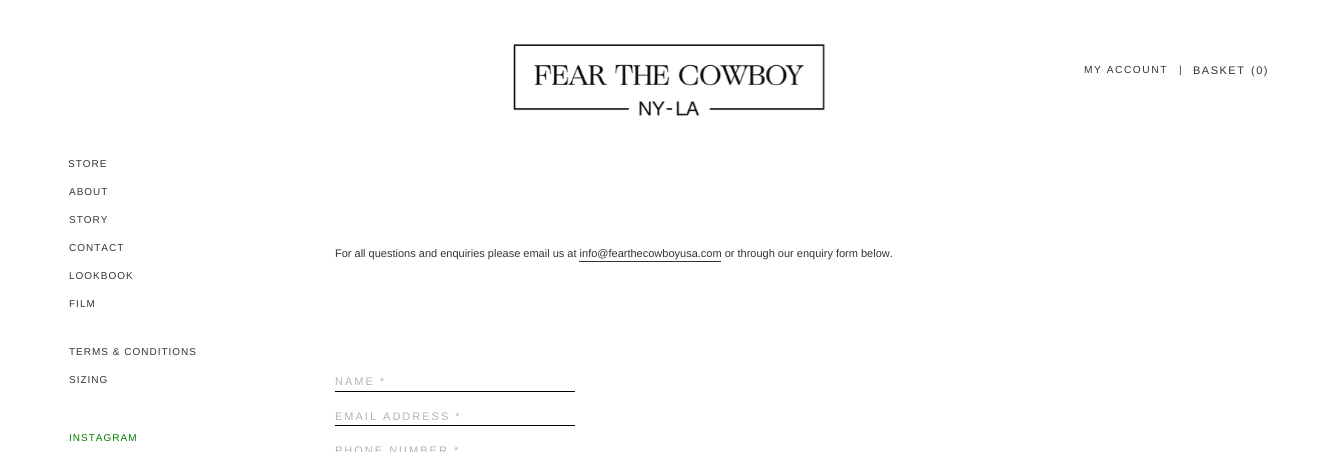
import math
import cairocffi as cairo

surface = cairo.ImageSurface(cairo.FORMAT_RGB24, 1338, 452)
cr = cairo.Context(surface)
options = cairo.FontOptions()
options.set_hint_metrics(cairo.HINT_METRICS_OFF)
options.set_hint_style(cairo.HINT_STYLE_NONE)
cr.set_font_options(options)
cr.set_miter_limit(4)


def use_color(code):
    cr.set_source_rgb(*(v / 255 for v in bytes.fromhex(code[-6:])))


def spaced_text(x, y, s, letter, word):
    cr.move_to(x, y)
    for ch in s:
        cr.show_text(ch)
        cr.rel_move_to(letter + word * (ch == ' '), 0)


def picture(path, x, y, w, h):
    cr.save()
    cr.set_source_surface(cairo.ImageSurface.create_from_png(path), x, y)
    cr.rectangle(x, y, w, h)
    cr.fill()
    cr.restore()


use_color("#ffffff")
cr.paint()
picture("img1.png", 513, 44, 312, 72)
cr.select_font_face("Liberation Sans")
cr.set_font_size(10.25)
use_color("#333333")
spaced_text(1084, 73, "MY ACCOUNT", 1.5, 0)
spaced_text(1179, 73, "|", 1.5, 0)
cr.set_font_size(11)
spaced_text(1193, 74, "BASKET", 1.5, 0)
spaced_text(1251, 74, "(0)", 1.5, 0)
cr.set_font_size(10)
spaced_text(68, 167, "STORE", 1, 0)
spaced_text(69, 195, "ABOUT", 1, 0)
spaced_text(69, 223, "STORY", 1, 0)
spaced_text(69, 251, "CONTACT", 1, 0)
spaced_text(69, 279, "LOOKBOOK", 1, 0)
spaced_text(69, 307, "FILM", 1, 0)
spaced_text(69, 355, "TERMS & CONDITIONS", 1, 0)
spaced_text(69, 383, "SIZING", 1, 0)
use_color("#008000")
spaced_text(69, 441, "INSTAGRAM", 1, 0)
cr.set_font_size(11)
use_color("#333333")
cr.move_to(335, 257)
cr.show_text("For all questions and enquiries please email us at info@fearthecowboyusa.com or through our enquiry form below.")
cr.rectangle(579, 261, 142, 1)
cr.fill()
use_color("#000000")
cr.rectangle(335, 391, 240, 1)
cr.fill()
use_color("#b3b3b3")
spaced_text(335, 385, "NAME *", 2, 0)
use_color("#000000")
cr.rectangle(335, 425, 240, 1)
cr.fill()
use_color("#b3b3b3")
spaced_text(335, 420, "EMAIL ADDRESS *", 2, 0)
spaced_text(335, 454, "PHONE NUMBER *", 2, 0)
surface.write_to_png("result.png")
